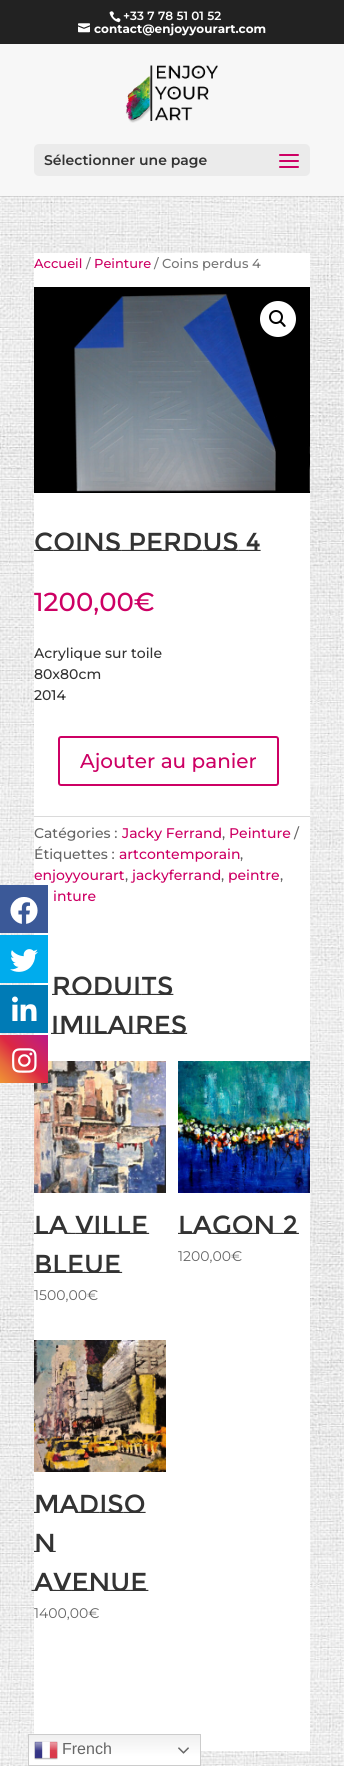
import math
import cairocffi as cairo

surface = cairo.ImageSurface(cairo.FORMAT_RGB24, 344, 1766)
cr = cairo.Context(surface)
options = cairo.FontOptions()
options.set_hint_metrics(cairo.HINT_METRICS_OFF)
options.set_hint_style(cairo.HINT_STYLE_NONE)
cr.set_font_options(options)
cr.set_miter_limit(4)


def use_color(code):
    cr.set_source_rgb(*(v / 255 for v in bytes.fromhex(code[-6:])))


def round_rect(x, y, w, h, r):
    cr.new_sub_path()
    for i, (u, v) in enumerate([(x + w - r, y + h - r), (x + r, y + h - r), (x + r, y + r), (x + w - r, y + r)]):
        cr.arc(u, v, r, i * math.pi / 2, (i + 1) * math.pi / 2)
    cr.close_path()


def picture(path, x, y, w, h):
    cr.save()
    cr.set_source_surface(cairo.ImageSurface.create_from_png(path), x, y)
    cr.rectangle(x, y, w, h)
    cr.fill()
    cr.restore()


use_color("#ffffff")
cr.paint()
picture("img1.png", 0, 196, 344, 1570)
use_color("#ffffff")
cr.rectangle(34, 253, 276, 1498)
cr.fill()
use_color("#3b5998")
cr.rectangle(0, 885, 48, 48)
cr.fill()
picture("img2.png", 10, 897, 28, 27)
use_color("#00aced")
cr.rectangle(0, 935, 48, 48)
cr.fill()
picture("img3.png", 10, 949, 28, 23)
use_color("#007bb6")
cr.rectangle(0, 985, 48, 48)
cr.fill()
picture("img4.png", 12, 996, 25, 25)
picture("img11.png", 34, 1061, 132, 132)
gradient = cairo.LinearGradient(0, 1083, 48, 1035)
gradient.add_color_stop_rgba(0, 0.941, 0.58, 0.2, 1)
gradient.add_color_stop_rgba(0.25, 0.902, 0.408, 0.235, 1)
gradient.add_color_stop_rgba(0.5, 0.863, 0.153, 0.263, 1)
gradient.add_color_stop_rgba(0.75, 0.8, 0.137, 0.4, 1)
gradient.add_color_stop_rgba(1, 0.737, 0.094, 0.533, 1)
cr.set_source(gradient)
cr.rectangle(0, 1035, 48, 48)
cr.fill()
picture("img5.png", 12, 1048, 25, 25)
use_color("#222222")
cr.rectangle(0, 0, 344, 44)
cr.fill()
picture("img6.png", 109, 11, 12, 12)
cr.select_font_face("Montserrat SemiBold")
cr.set_font_size(12)
use_color("#ffffff")
cr.move_to(123, 20)
cr.show_text("+33 7 78 51 01 52")
picture("img7.png", 78, 23, 12, 10)
cr.select_font_face("Montserrat", cairo.FONT_SLANT_NORMAL, cairo.FONT_WEIGHT_BOLD)
cr.move_to(94, 33)
cr.show_text("contact@enjoyyourart.com")
cr.set_source_rgba(0, 0, 0, 0.1)
cr.rectangle(0, 196, 344, 1)
cr.fill()
use_color("#f7f7f7")
cr.rectangle(0, 44, 344, 152)
cr.fill()
picture("img8.png", 125, 65, 93, 58)
use_color("#ebebeb")
round_rect(34, 144, 276, 32, 5)
cr.fill()
cr.select_font_face("Montserrat SemiBold")
cr.set_font_size(14)
use_color("#333333")
cr.move_to(44, 165)
cr.show_text("Sélectionner une page")
picture("img9.png", 279, 154, 20, 14)
cr.select_font_face("Montserrat Medium")
cr.set_font_size(13)
use_color("#cd0064")
cr.move_to(34, 268)
cr.show_text("Accueil")
use_color("#767676")
cr.move_to(86, 268)
cr.show_text("/")
use_color("#cd0064")
cr.move_to(94, 268)
cr.show_text("Peinture")
use_color("#767676")
cr.move_to(154, 268)
cr.show_text("/ Coins perdus 4")
picture("img10.png", 34, 287, 276, 206)
use_color("#ffffff")
cr.arc(278, 319, 18, 0, 2 * math.pi)
cr.fill()
cr.arc(276, 317, 6, 0, 2 * math.pi)
use_color("#000000")
cr.stroke()
cr.new_path()
cr.move_to(280, 321)
cr.curve_to(281, 320, 282.5, 322.5, 283.5, 323)
cr.curve_to(284, 324, 286.5, 325.5, 285.5, 326.5)
cr.curve_to(284, 328, 282.5, 325, 282, 324.5)
cr.curve_to(281.5, 324, 278.5, 322, 280, 321)
cr.close_path()
cr.fill()
cr.select_font_face("Montserrat Subrayada")
cr.set_font_size(26)
use_color("#333333")
cr.move_to(34, 551)
cr.show_text("Coins perdus 4")
cr.select_font_face("Montserrat Medium")
use_color("#cd0064")
cr.move_to(34, 611)
cr.show_text("1200,00€")
cr.set_font_size(14)
use_color("#333333")
cr.move_to(34, 658)
cr.show_text("Acrylique sur toile")
cr.move_to(34, 679)
cr.show_text("80x80cm")
cr.move_to(34, 700)
cr.show_text("2014")
round_rect(59, 737, 219, 48, 2)
use_color("#cd0064")
cr.stroke()
cr.set_font_size(20)
cr.move_to(80, 768)
cr.show_text("Ajouter au panier")
use_color("#dadada")
cr.rectangle(34, 816, 276, 1)
cr.fill()
cr.set_font_size(14)
use_color("#666666")
cr.move_to(34, 838)
cr.show_text("Catégories :")
use_color("#cd0064")
cr.move_to(122, 838)
cr.show_text("Jacky Ferrand")
use_color("#666666")
cr.move_to(222, 838)
cr.show_text(",")
use_color("#cd0064")
cr.move_to(229, 838)
cr.show_text("Peinture")
use_color("#666666")
cr.move_to(294, 838)
cr.show_text("/")
cr.move_to(34, 859)
cr.show_text("Étiquettes :")
use_color("#cd0064")
cr.move_to(119, 859)
cr.show_text("artcontemporain")
use_color("#666666")
cr.move_to(240, 859)
cr.show_text(",")
use_color("#cd0064")
cr.move_to(34, 880)
cr.show_text("enjoyyourart")
use_color("#666666")
cr.move_to(125, 880)
cr.show_text(",")
use_color("#cd0064")
cr.move_to(132, 880)
cr.show_text("jackyferrand")
use_color("#666666")
cr.move_to(221, 880)
cr.show_text(",")
use_color("#cd0064")
cr.move_to(228, 880)
cr.show_text("peintre")
use_color("#666666")
cr.move_to(280, 880)
cr.show_text(",")
use_color("#cd0064")
cr.move_to(53, 901)
cr.show_text("inture")
cr.select_font_face("Montserrat Subrayada")
cr.set_font_size(26)
use_color("#333333")
cr.move_to(52, 995)
cr.show_text("roduits")
cr.move_to(51, 1034)
cr.show_text("imilaires")
cr.move_to(34, 1234)
cr.show_text("La ville")
cr.move_to(34, 1273)
cr.show_text("bleue")
cr.select_font_face("Montserrat")
cr.set_font_size(14)
use_color("#666666")
cr.move_to(34, 1300)
cr.show_text("1500,00€")
picture("img12.png", 178, 1061, 132, 132)
cr.select_font_face("Montserrat Subrayada")
cr.set_font_size(26)
use_color("#333333")
cr.move_to(178, 1234)
cr.show_text("Lagon 2")
cr.select_font_face("Montserrat")
cr.set_font_size(14)
use_color("#666666")
cr.move_to(178, 1261)
cr.show_text("1200,00€")
picture("img13.png", 34, 1340, 132, 132)
cr.select_font_face("Montserrat Subrayada")
cr.set_font_size(26)
use_color("#333333")
cr.move_to(34, 1513)
cr.show_text("Madiso")
cr.move_to(34, 1552)
cr.show_text("n")
cr.move_to(34, 1591)
cr.show_text("avenue")
cr.select_font_face("Montserrat")
cr.set_font_size(14)
use_color("#666666")
cr.move_to(34, 1618)
cr.show_text("1400,00€")
gradient = cairo.LinearGradient(115, 1734, 115, 1766)
gradient.add_color_stop_rgba(0, 0.937, 0.937, 0.937, 1)
gradient.add_color_stop_rgba(0.7, 1, 1, 1, 1)
cr.set_source(gradient)
cr.rectangle(29, 1735, 171, 30)
cr.fill()
cr.rectangle(28.5, 1734.5, 172, 31)
use_color("#cccccc")
cr.set_line_width(1)
cr.stroke()
picture("img14.png", 34, 1741, 24, 19)
cr.select_font_face("Liberation Sans")
cr.set_font_size(16)
use_color("#666666")
cr.move_to(62, 1754)
cr.show_text("French")
picture("img15.png", 178, 1747, 11, 7)
surface.write_to_png("result.png")
